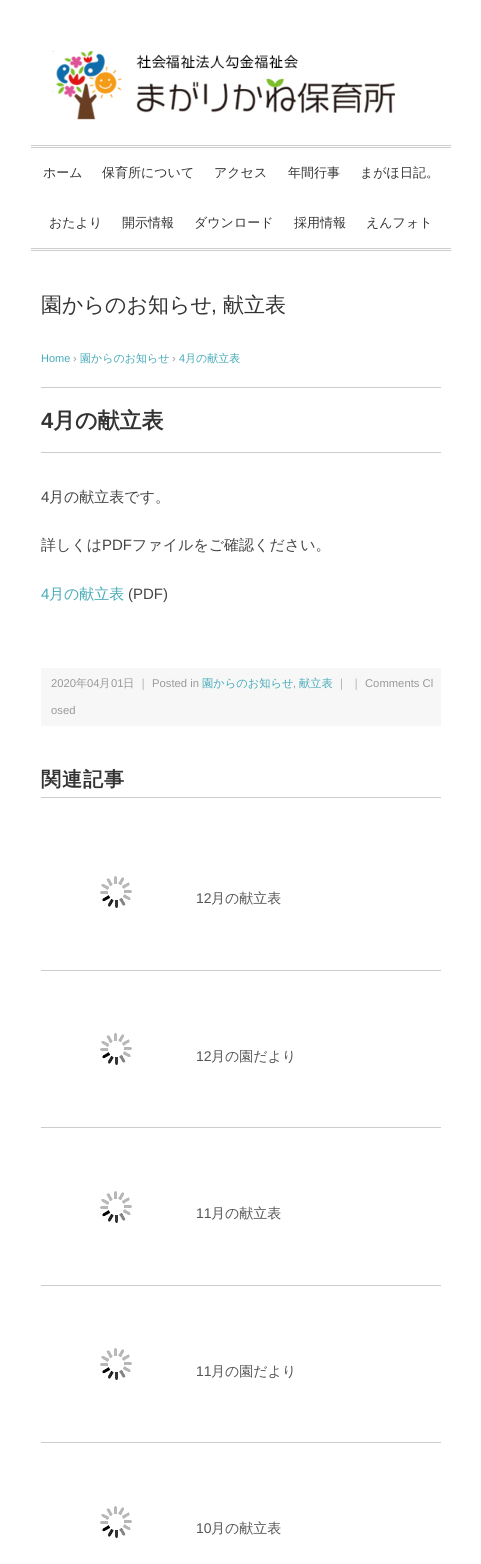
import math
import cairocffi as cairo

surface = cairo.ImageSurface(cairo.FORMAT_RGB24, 481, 1564)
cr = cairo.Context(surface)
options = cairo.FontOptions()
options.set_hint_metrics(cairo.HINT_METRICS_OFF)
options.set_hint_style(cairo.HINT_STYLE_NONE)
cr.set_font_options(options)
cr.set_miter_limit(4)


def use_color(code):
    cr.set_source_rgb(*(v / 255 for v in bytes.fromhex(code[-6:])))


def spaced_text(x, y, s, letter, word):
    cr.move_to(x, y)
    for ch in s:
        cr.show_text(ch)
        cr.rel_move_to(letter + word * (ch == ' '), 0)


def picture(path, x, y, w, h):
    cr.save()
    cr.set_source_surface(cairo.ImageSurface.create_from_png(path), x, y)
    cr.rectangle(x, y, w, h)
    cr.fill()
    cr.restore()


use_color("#ffffff")
cr.paint()
picture("img1.png", 52, 50, 343, 70)
use_color("#cccccc")
cr.rectangle(31, 145, 420, 1)
cr.fill()
cr.rectangle(31, 147, 420, 1)
cr.fill()
cr.rectangle(31, 248, 420, 1)
cr.fill()
cr.rectangle(31, 250, 420, 1)
cr.fill()
cr.select_font_face("WenQuanYi Zen Hei Medium")
cr.set_font_size(13)
use_color("#333333")
cr.move_to(43, 177)
cr.show_text("ホーム")
cr.move_to(102, 177)
cr.show_text("保育所について")
cr.move_to(214, 177)
cr.show_text("アクセス")
cr.move_to(288, 177)
cr.show_text("年間行事")
cr.move_to(360, 177)
cr.show_text("まがほ日記。")
cr.move_to(49, 227)
cr.show_text("おたより")
cr.move_to(122, 227)
cr.show_text("開示情報")
cr.move_to(194, 227)
cr.show_text("ダウンロード")
cr.move_to(294, 227)
cr.show_text("採用情報")
cr.move_to(366, 227)
cr.show_text("えんフォト")
cr.set_font_size(21)
cr.move_to(41, 312)
cr.show_text("園からのお知らせ")
cr.select_font_face("Liberation Sans")
cr.move_to(211, 312)
cr.show_text(",")
cr.select_font_face("WenQuanYi Zen Hei Medium")
cr.move_to(223, 312)
cr.show_text("献立表")
cr.select_font_face("Liberation Sans")
cr.set_font_size(11)
use_color("#45aab8")
cr.move_to(41, 362)
cr.show_text("Home")
use_color("#999999")
cr.move_to(73, 362)
cr.show_text("›")
cr.select_font_face("WenQuanYi Zen Hei Medium")
use_color("#45aab8")
cr.move_to(80, 362)
cr.show_text("園からのお知らせ")
cr.select_font_face("Liberation Sans")
use_color("#999999")
cr.move_to(172, 362)
cr.show_text("›")
use_color("#45aab8")
cr.move_to(179, 362)
cr.show_text("4")
cr.select_font_face("WenQuanYi Zen Hei Medium")
cr.move_to(185, 362)
cr.show_text("月の献立表")
use_color("#cccccc")
cr.rectangle(41, 387, 400, 1)
cr.fill()
cr.rectangle(41, 452, 400, 1)
cr.fill()
cr.select_font_face("Liberation Sans", cairo.FONT_SLANT_NORMAL, cairo.FONT_WEIGHT_BOLD)
cr.set_font_size(22)
use_color("#333333")
cr.move_to(41, 428)
cr.show_text("4")
cr.select_font_face("WenQuanYi Zen Hei", cairo.FONT_SLANT_NORMAL, cairo.FONT_WEIGHT_BOLD)
cr.move_to(53, 428)
cr.show_text("月の献立表")
cr.select_font_face("Liberation Sans")
cr.set_font_size(15)
use_color("#444444")
cr.move_to(41, 502)
cr.show_text("4")
cr.select_font_face("WenQuanYi Zen Hei Medium")
cr.move_to(49, 502)
cr.show_text("月の献立表です。")
cr.move_to(41, 550)
cr.show_text("詳しくは")
cr.select_font_face("Liberation Sans")
cr.move_to(102, 550)
cr.show_text("PDF")
cr.select_font_face("WenQuanYi Zen Hei Medium")
cr.move_to(132, 550)
cr.show_text("ファイルをご確認ください。")
cr.select_font_face("Liberation Sans")
use_color("#45aab8")
cr.move_to(41, 599)
cr.show_text("4")
cr.select_font_face("WenQuanYi Zen Hei Medium")
cr.move_to(49, 599)
cr.show_text("月の献立表")
cr.select_font_face("Liberation Sans")
use_color("#444444")
cr.move_to(128, 599)
cr.show_text("(PDF)")
use_color("#f7f7f7")
cr.rectangle(41, 668, 400, 58)
cr.fill()
cr.set_font_size(11.25)
use_color("#999999")
cr.move_to(51, 687)
cr.show_text("2020")
cr.select_font_face("WenQuanYi Zen Hei Medium")
cr.move_to(76, 687)
cr.show_text("年")
cr.select_font_face("Liberation Sans")
cr.move_to(87, 687)
cr.show_text("04")
cr.select_font_face("WenQuanYi Zen Hei Medium")
cr.move_to(99, 687)
cr.show_text("月")
cr.select_font_face("Liberation Sans")
cr.move_to(111, 687)
cr.show_text("01")
cr.select_font_face("WenQuanYi Zen Hei Medium")
cr.move_to(123, 687)
cr.show_text("日 ｜")
cr.select_font_face("Liberation Sans")
cr.move_to(152, 687)
cr.show_text("Posted in")
cr.select_font_face("WenQuanYi Zen Hei Medium")
use_color("#45aab8")
cr.move_to(202, 687)
cr.show_text("園からのお知らせ")
cr.select_font_face("Liberation Sans")
use_color("#999999")
cr.move_to(293, 687)
cr.show_text(",")
cr.select_font_face("WenQuanYi Zen Hei Medium")
use_color("#45aab8")
cr.move_to(299, 687)
cr.show_text("献立表")
use_color("#999999")
cr.move_to(336, 687)
cr.show_text("｜ ｜")
cr.select_font_face("Liberation Sans")
cr.move_to(365, 687)
cr.show_text("Comments Cl")
cr.move_to(51, 714)
cr.show_text("osed")
use_color("#cccccc")
cr.rectangle(41, 797, 400, 1)
cr.fill()
cr.select_font_face("WenQuanYi Zen Hei", cairo.FONT_SLANT_NORMAL, cairo.FONT_WEIGHT_BOLD)
cr.set_font_size(20)
use_color("#333333")
spaced_text(41, 786, "関連記事", 1, 0)
use_color("#cccccc")
cr.rectangle(41, 970, 400, 1)
cr.fill()
picture("img2.png", 100, 876, 32, 32)
cr.select_font_face("Liberation Sans")
cr.set_font_size(14)
use_color("#555555")
cr.move_to(196, 903)
cr.show_text("12")
cr.select_font_face("WenQuanYi Zen Hei Medium")
cr.move_to(211, 903)
cr.show_text("月の献立表")
use_color("#cccccc")
cr.rectangle(41, 1127, 400, 1)
cr.fill()
picture("img2.png", 100, 1033, 32, 32)
cr.select_font_face("Liberation Sans")
use_color("#555555")
cr.move_to(196, 1061)
cr.show_text("12")
cr.select_font_face("WenQuanYi Zen Hei Medium")
cr.move_to(211, 1061)
cr.show_text("月の園だより")
use_color("#cccccc")
cr.rectangle(41, 1285, 400, 1)
cr.fill()
picture("img2.png", 100, 1191, 32, 32)
cr.select_font_face("Liberation Sans")
use_color("#555555")
cr.move_to(196, 1218)
cr.show_text("11")
cr.select_font_face("WenQuanYi Zen Hei Medium")
cr.move_to(211, 1218)
cr.show_text("月の献立表")
use_color("#cccccc")
cr.rectangle(41, 1442, 400, 1)
cr.fill()
picture("img2.png", 100, 1348, 32, 32)
cr.select_font_face("Liberation Sans")
use_color("#555555")
cr.move_to(196, 1376)
cr.show_text("11")
cr.select_font_face("WenQuanYi Zen Hei Medium")
cr.move_to(211, 1376)
cr.show_text("月の園だより")
picture("img2.png", 100, 1506, 32, 32)
cr.select_font_face("Liberation Sans")
cr.move_to(196, 1533)
cr.show_text("10")
cr.select_font_face("WenQuanYi Zen Hei Medium")
cr.move_to(211, 1533)
cr.show_text("月の献立表")
surface.write_to_png("result.png")
